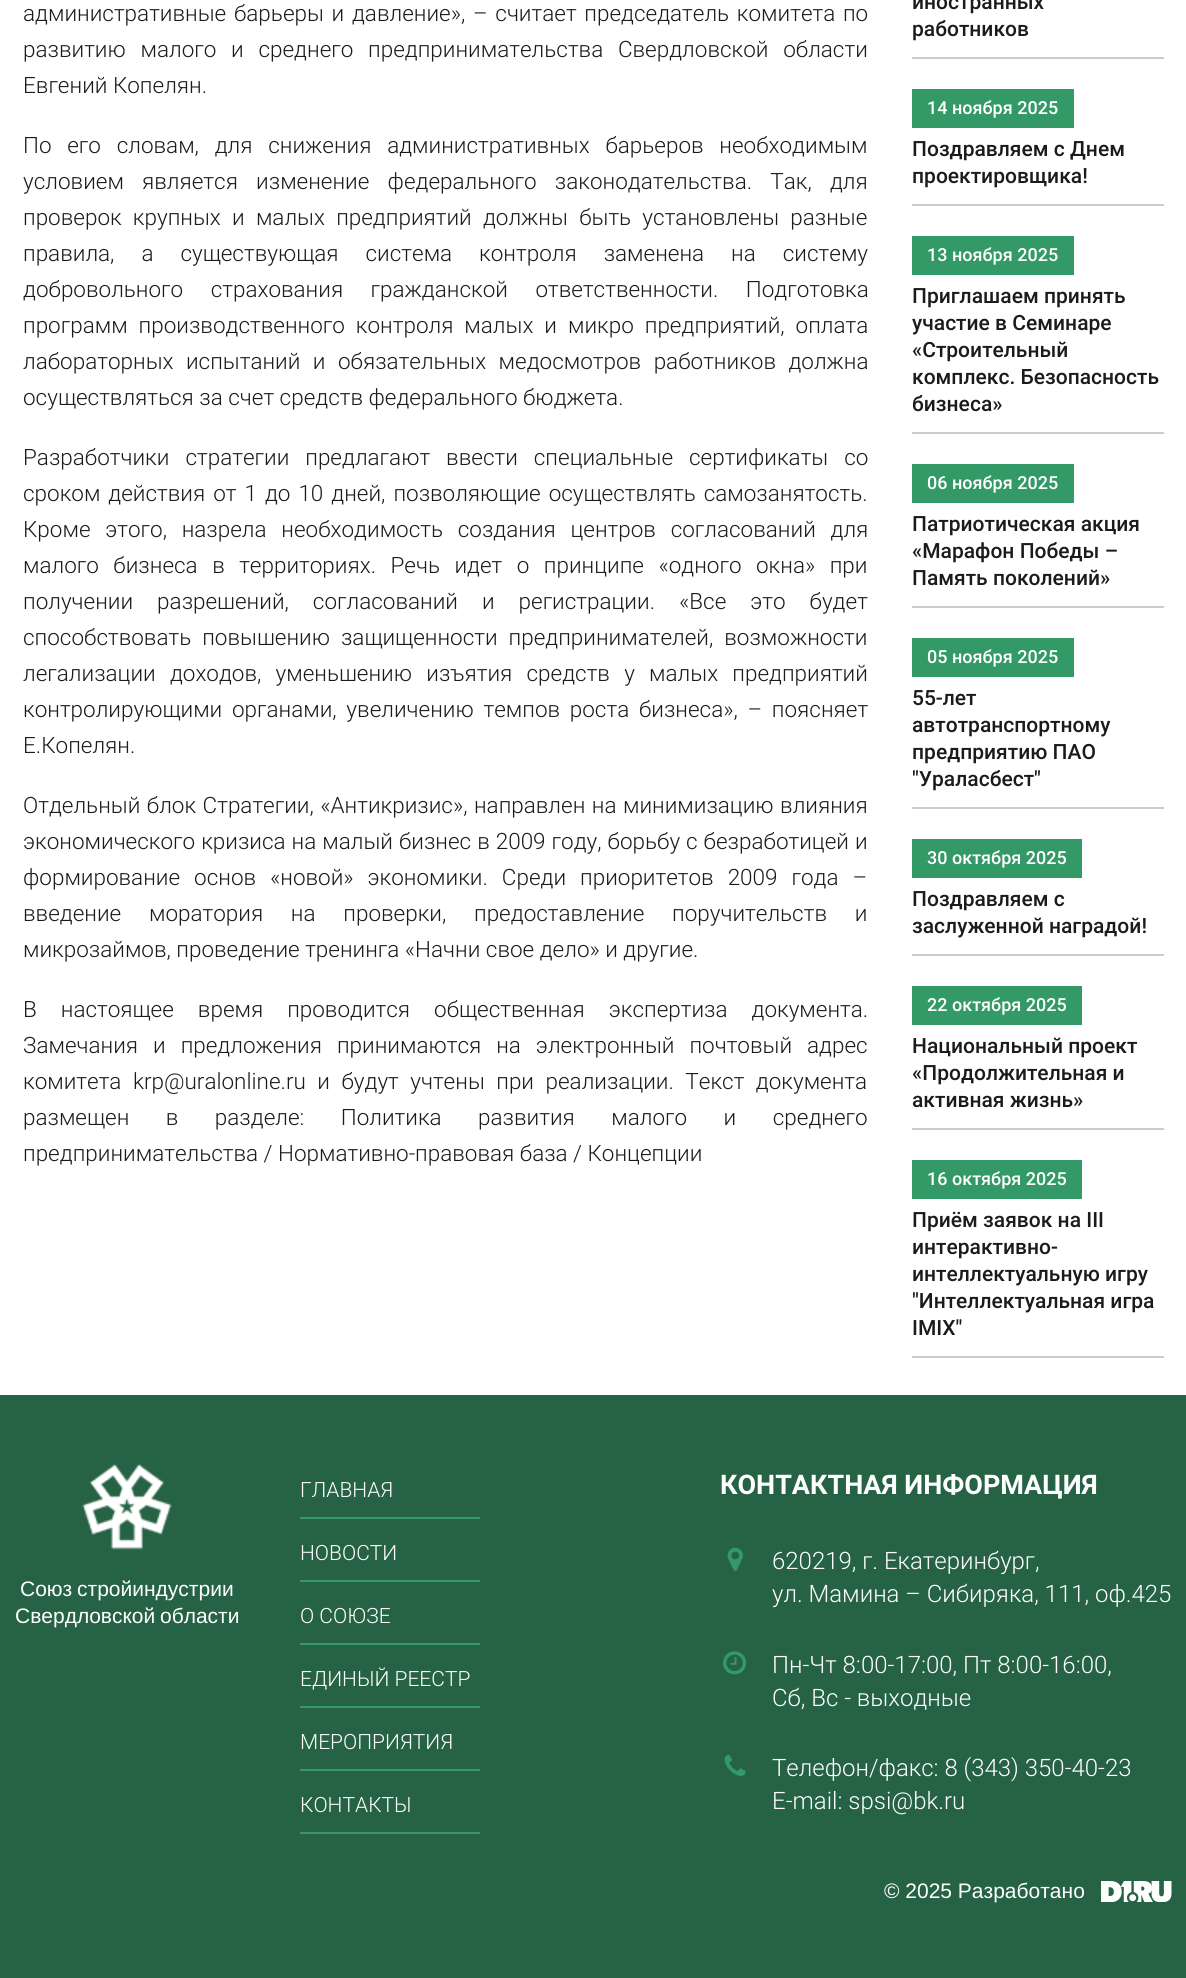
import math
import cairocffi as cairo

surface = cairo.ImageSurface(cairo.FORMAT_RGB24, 1186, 1978)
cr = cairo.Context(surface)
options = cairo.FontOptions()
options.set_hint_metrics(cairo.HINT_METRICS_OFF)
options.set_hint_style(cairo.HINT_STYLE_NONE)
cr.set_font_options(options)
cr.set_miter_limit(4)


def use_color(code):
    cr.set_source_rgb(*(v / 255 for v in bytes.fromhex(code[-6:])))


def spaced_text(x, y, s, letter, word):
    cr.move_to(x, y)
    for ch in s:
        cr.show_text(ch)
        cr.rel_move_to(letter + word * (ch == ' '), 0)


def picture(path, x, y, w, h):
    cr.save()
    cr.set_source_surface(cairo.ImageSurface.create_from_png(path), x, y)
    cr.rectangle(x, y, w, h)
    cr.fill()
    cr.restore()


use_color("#ffffff")
cr.paint()
cr.select_font_face("Roboto Light")
cr.set_font_size(22.5)
use_color("#1b1b1b")
spaced_text(23, 21, "административные барьеры и давление», – считает председатель комитета по", 0, 2.25)
spaced_text(23, 57, "развитию малого и среднего предпринимательства Свердловской области", 0, 9.25)
cr.move_to(23, 93)
cr.show_text("Евгений Копелян.")
spaced_text(23, 153, "По его словам, для снижения административных барьеров необходимым", 0, 10.25)
spaced_text(23, 189, "условием является изменение федерального законодательства. Так, для", 0, 12.75)
spaced_text(23, 225, "проверок крупных и малых предприятий должны быть установлены разные", 0, 5.75)
spaced_text(23, 261, "правила, а существующая система контроля заменена на систему", 0, 21.5)
spaced_text(23, 297, "добровольного страхования гражданской ответственности. Подготовка", 0, 22)
spaced_text(23, 333, "программ производственного контроля малых и микро предприятий, оплата", 0, 5.5)
spaced_text(23, 369, "лабораторных испытаний и обязательных медосмотров работников должна", 0, 7)
cr.move_to(23, 405)
cr.show_text("осуществляться за счет средств федерального бюджета.")
spaced_text(23, 465, "Разработчики стратегии предлагают ввести специальные сертификаты со", 0, 10.5)
spaced_text(23, 501, "сроком действия от 1 до 10 дней, позволяющие осуществлять самозанятость.", 0, 2.5)
spaced_text(23, 537, "Кроме этого, назрела необходимость создания центров согласований для", 0, 9.25)
spaced_text(23, 573, "малого бизнеса в территориях. Речь идет о принципе «одного окна» при", 0, 9)
spaced_text(23, 609, "получении разрешений, согласований и регистрации. «Все это будет", 0, 18.5)
spaced_text(23, 645, "способствовать повышению защищенности предпринимателей, возможности", 0, 5.5)
spaced_text(23, 681, "легализации доходов, уменьшению изъятия средств у малых предприятий", 0, 8.75)
spaced_text(23, 717, "контролирующими органами, увеличению темпов роста бизнеса», – поясняет", 0, 4.25)
cr.move_to(23, 753)
cr.show_text("Е.Копелян.")
spaced_text(23, 813, "Отдельный блок Стратегии, «Антикризис», направлен на минимизацию влияния", 0, 1)
spaced_text(23, 849, "экономического кризиса на малый бизнес в 2009 году, борьбу с безработицей и", 0, 0.5)
spaced_text(23, 885, "формирование основ «новой» экономики. Среди приоритетов 2009 года –", 0, 8.5)
spaced_text(23, 921, "введение моратория на проверки, предоставление поручительств и", 0, 22.25)
cr.move_to(23, 957)
cr.show_text("микрозаймов, проведение тренинга «Начни свое дело» и другие.")
spaced_text(23, 1017, "В настоящее время проводится общественная экспертиза документа.", 0, 18.5)
spaced_text(23, 1053, "Замечания и предложения принимаются на электронный почтовый адрес", 0, 9.5)
spaced_text(23, 1089, "комитета krp@uralonline.ru и будут учтены при реализации. Текст документа", 0, 6)
spaced_text(23, 1125, "размещен в разделе: Политика развития малого и среднего", 0, 31)
cr.move_to(23, 1161)
cr.show_text("предпринимательства / Нормативно-правовая база / Концепции")
use_color("#cccccc")
cr.rectangle(912, 57, 252, 2)
cr.fill()
cr.select_font_face("Roboto Medium")
cr.set_font_size(21)
use_color("#1b1b1b")
cr.move_to(912, 9)
cr.show_text("иностранных")
cr.move_to(912, 36)
cr.show_text("работников")
use_color("#cccccc")
cr.rectangle(912, 204, 252, 2)
cr.fill()
use_color("#339966")
cr.rectangle(912, 89, 162, 39)
cr.fill()
cr.set_font_size(18)
use_color("#ffffff")
cr.move_to(927, 114)
cr.show_text("14 ноября 2025")
cr.set_font_size(21)
use_color("#1b1b1b")
cr.move_to(912, 156)
cr.show_text("Поздравляем с Днем")
cr.move_to(912, 183)
cr.show_text("проектировщика!")
use_color("#cccccc")
cr.rectangle(912, 432, 252, 2)
cr.fill()
use_color("#339966")
cr.rectangle(912, 236, 162, 39)
cr.fill()
cr.set_font_size(18)
use_color("#ffffff")
cr.move_to(927, 261)
cr.show_text("13 ноября 2025")
cr.set_font_size(21)
use_color("#1b1b1b")
cr.move_to(912, 303)
cr.show_text("Приглашаем принять")
cr.move_to(912, 330)
cr.show_text("участие в Семинаре")
cr.move_to(912, 357)
cr.show_text("«Строительный")
cr.move_to(912, 384)
cr.show_text("комплекс. Безопасность")
cr.move_to(912, 411)
cr.show_text("бизнеса»")
use_color("#cccccc")
cr.rectangle(912, 606, 252, 2)
cr.fill()
use_color("#339966")
cr.rectangle(912, 464, 162, 39)
cr.fill()
cr.set_font_size(18)
use_color("#ffffff")
cr.move_to(927, 489)
cr.show_text("06 ноября 2025")
cr.set_font_size(21)
use_color("#1b1b1b")
cr.move_to(912, 531)
cr.show_text("Патриотическая акция")
cr.move_to(912, 558)
cr.show_text("«Марафон Победы –")
cr.move_to(912, 585)
cr.show_text("Память поколений»")
use_color("#cccccc")
cr.rectangle(912, 807, 252, 2)
cr.fill()
use_color("#339966")
cr.rectangle(912, 638, 162, 39)
cr.fill()
cr.set_font_size(18)
use_color("#ffffff")
cr.move_to(927, 663)
cr.show_text("05 ноября 2025")
cr.set_font_size(21)
use_color("#1b1b1b")
cr.move_to(912, 705)
cr.show_text("55-лет")
cr.move_to(912, 732)
cr.show_text("автотранспортному")
cr.move_to(912, 759)
cr.show_text("предприятию ПАО")
cr.move_to(912, 786)
cr.show_text("\"Ураласбест\"")
use_color("#cccccc")
cr.rectangle(912, 954, 252, 2)
cr.fill()
use_color("#339966")
cr.rectangle(912, 839, 170, 39)
cr.fill()
cr.set_font_size(18)
use_color("#ffffff")
cr.move_to(927, 864)
cr.show_text("30 октября 2025")
cr.set_font_size(21)
use_color("#1b1b1b")
cr.move_to(912, 906)
cr.show_text("Поздравляем с")
cr.move_to(912, 933)
cr.show_text("заслуженной наградой!")
use_color("#cccccc")
cr.rectangle(912, 1128, 252, 2)
cr.fill()
use_color("#339966")
cr.rectangle(912, 986, 170, 39)
cr.fill()
cr.set_font_size(18)
use_color("#ffffff")
cr.move_to(927, 1011)
cr.show_text("22 октября 2025")
cr.set_font_size(21)
use_color("#1b1b1b")
cr.move_to(912, 1053)
cr.show_text("Национальный проект")
cr.move_to(912, 1080)
cr.show_text("«Продолжительная и")
cr.move_to(912, 1107)
cr.show_text("активная жизнь»")
use_color("#cccccc")
cr.rectangle(912, 1356, 252, 2)
cr.fill()
use_color("#339966")
cr.rectangle(912, 1160, 170, 39)
cr.fill()
cr.set_font_size(18)
use_color("#ffffff")
cr.move_to(927, 1185)
cr.show_text("16 октября 2025")
cr.set_font_size(21)
use_color("#1b1b1b")
cr.move_to(912, 1227)
cr.show_text("Приём заявок на III")
cr.move_to(912, 1254)
cr.show_text("интерактивно-")
cr.move_to(912, 1281)
cr.show_text("интеллектуальную игру")
cr.move_to(912, 1308)
cr.show_text("\"Интеллектуальная игра")
cr.move_to(912, 1335)
cr.show_text("IMIX\"")
use_color("#266244")
cr.rectangle(0, 1395, 1186, 583)
cr.fill()
picture("img1.png", 82, 1464, 90, 86)
cr.select_font_face("Liberation Sans")
use_color("#ffffff")
spaced_text(20, 1596, "Союз стройиндустрии", 0, -1)
spaced_text(15, 1623, "Свердловской области", 0, -1)
use_color("#339966")
cr.rectangle(300, 1517, 180, 2)
cr.fill()
cr.select_font_face("Roboto Light")
use_color("#ffffff")
cr.move_to(300, 1497)
cr.show_text("ГЛАВНАЯ")
use_color("#339966")
cr.rectangle(300, 1580, 180, 2)
cr.fill()
use_color("#ffffff")
cr.move_to(300, 1560)
cr.show_text("НОВОСТИ")
use_color("#339966")
cr.rectangle(300, 1643, 180, 2)
cr.fill()
use_color("#ffffff")
cr.move_to(300, 1623)
cr.show_text("О СОЮЗЕ")
use_color("#339966")
cr.rectangle(300, 1706, 180, 2)
cr.fill()
use_color("#ffffff")
cr.move_to(300, 1686)
cr.show_text("ЕДИНЫЙ РЕЕСТР")
use_color("#339966")
cr.rectangle(300, 1769, 180, 2)
cr.fill()
use_color("#ffffff")
cr.move_to(300, 1749)
cr.show_text("МЕРОПРИЯТИЯ")
use_color("#339966")
cr.rectangle(300, 1832, 180, 2)
cr.fill()
use_color("#ffffff")
cr.move_to(300, 1812)
cr.show_text("КОНТАКТЫ")
cr.select_font_face("Roboto", cairo.FONT_SLANT_NORMAL, cairo.FONT_WEIGHT_BOLD)
cr.set_font_size(27)
cr.move_to(720, 1494)
cr.show_text("КОНТАКТНАЯ ИНФОРМАЦИЯ")
picture("img2.png", 727, 1547, 16, 24)
cr.select_font_face("Roboto Light")
cr.set_font_size(24)
cr.move_to(772, 1569)
cr.show_text("620219, г. Екатеринбург,")
cr.move_to(772, 1602)
cr.show_text("ул. Мамина – Сибиряка, 111, оф.425")
picture("img3.png", 723, 1651, 24, 24)
cr.move_to(772, 1673)
cr.show_text("Пн-Чт 8:00-17:00, Пт 8:00-16:00,")
cr.move_to(772, 1706)
cr.show_text("Сб, Вс - выходные")
picture("img4.png", 724, 1754, 22, 22)
cr.move_to(772, 1776)
cr.show_text("Телефон/факс: 8 (343) 350-40-23")
cr.move_to(772, 1809)
cr.show_text("E-mail: spsi@bk.ru")
cr.select_font_face("Liberation Sans")
cr.set_font_size(21)
cr.move_to(884, 1898)
cr.show_text("© 2025 Разработано")
picture("img5.png", 1101, 1881, 71, 21)
surface.write_to_png("result.png")
